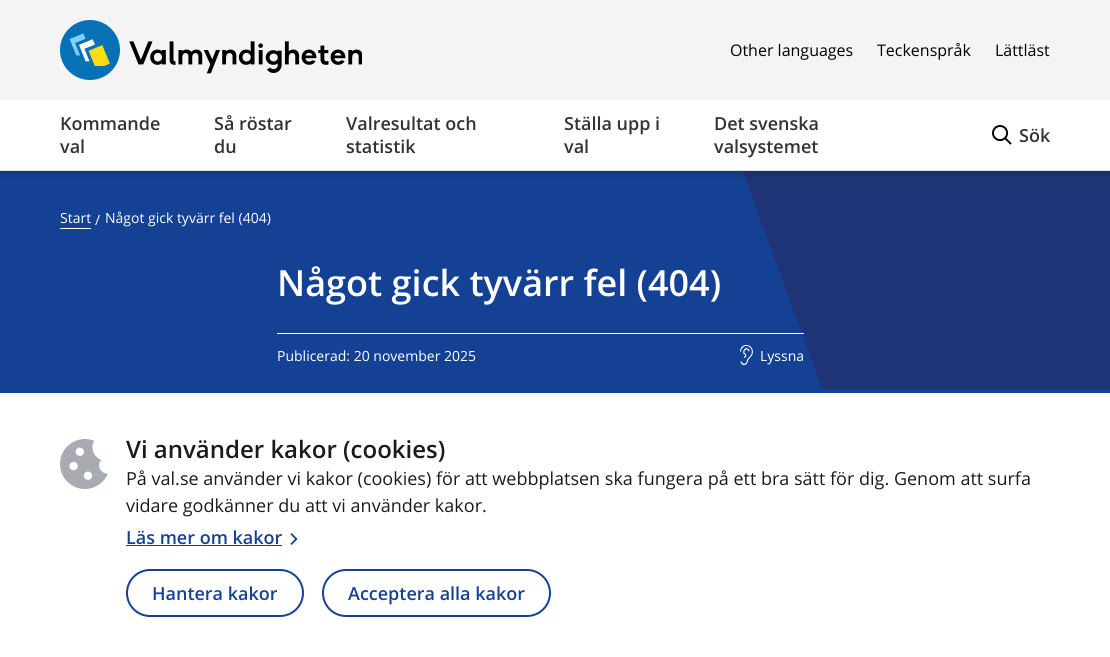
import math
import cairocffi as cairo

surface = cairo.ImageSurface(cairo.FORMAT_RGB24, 1110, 657)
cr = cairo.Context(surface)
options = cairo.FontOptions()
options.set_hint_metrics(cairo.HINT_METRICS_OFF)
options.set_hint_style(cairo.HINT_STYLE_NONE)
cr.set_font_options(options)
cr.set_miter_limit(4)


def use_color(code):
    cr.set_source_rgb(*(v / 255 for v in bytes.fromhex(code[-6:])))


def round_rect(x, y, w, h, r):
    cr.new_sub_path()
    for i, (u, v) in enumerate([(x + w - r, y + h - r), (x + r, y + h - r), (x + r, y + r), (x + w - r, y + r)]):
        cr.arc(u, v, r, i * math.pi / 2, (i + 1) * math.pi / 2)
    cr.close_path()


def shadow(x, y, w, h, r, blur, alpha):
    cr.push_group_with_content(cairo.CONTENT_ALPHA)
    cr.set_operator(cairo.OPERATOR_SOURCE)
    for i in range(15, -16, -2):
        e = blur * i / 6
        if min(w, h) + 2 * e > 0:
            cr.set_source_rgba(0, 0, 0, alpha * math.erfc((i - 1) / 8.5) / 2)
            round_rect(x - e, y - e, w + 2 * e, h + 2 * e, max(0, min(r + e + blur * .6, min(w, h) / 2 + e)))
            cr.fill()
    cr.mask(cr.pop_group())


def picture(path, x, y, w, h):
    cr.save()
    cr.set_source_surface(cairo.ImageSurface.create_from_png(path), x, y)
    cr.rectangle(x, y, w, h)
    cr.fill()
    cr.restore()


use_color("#ffffff")
cr.paint()
gradient = cairo.LinearGradient(14, 526, 1096, 132)
gradient.add_color_stop_rgba(0.7, 0.082, 0.255, 0.58, 1)
gradient.add_color_stop_rgba(0.7, 0.118, 0.204, 0.463, 1)
cr.set_source(gradient)
cr.rectangle(0, 171, 1110, 218)
cr.fill()
cr.save()
cr.rectangle(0, 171, 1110, 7)
cr.clip()
use_color("#000000")
shadow(-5, -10, 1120, 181, 0, 5, 0.3)
cr.restore()
use_color("#f4f4f4")
cr.rectangle(0, 0, 1110, 100)
cr.fill()
use_color("#dddee1")
cr.rectangle(0, 170, 1110, 1)
cr.fill()
picture("img1.png", 60, 20, 302, 60)
cr.select_font_face("Open Sans")
cr.set_font_size(16)
use_color("#000000")
cr.move_to(730, 56)
cr.show_text("Other languages")
cr.move_to(877, 56)
cr.show_text("Teckenspråk")
cr.move_to(995, 56)
cr.show_text("Lättläst")
cr.select_font_face("Open Sans SemiBold")
cr.set_font_size(18)
use_color("#333333")
cr.move_to(60, 130)
cr.show_text("Kommande")
cr.move_to(60, 153)
cr.show_text("val")
cr.move_to(214, 130)
cr.show_text("Så röstar")
cr.move_to(214, 153)
cr.show_text("du")
cr.move_to(346, 130)
cr.show_text("Valresultat och")
cr.move_to(346, 153)
cr.show_text("statistik")
cr.move_to(564, 130)
cr.show_text("Ställa upp i")
cr.move_to(564, 153)
cr.show_text("val")
cr.move_to(714, 130)
cr.show_text("Det svenska")
cr.move_to(714, 153)
cr.show_text("valsystemet")
picture("img2.png", 992, 125, 20, 20)
cr.move_to(1019, 142)
cr.show_text("Sök")
cr.select_font_face("Open Sans")
cr.set_font_size(14)
use_color("#ffffff")
cr.move_to(60, 223)
cr.show_text("Start")
cr.rectangle(60, 228, 31, 1)
cr.fill()
cr.move_to(95, 225)
cr.show_text("/")
cr.move_to(105, 223)
cr.show_text("Något gick tyvärr fel (404)")
cr.select_font_face("Open Sans SemiBold")
cr.set_font_size(36)
cr.move_to(277, 296)
cr.show_text("Något gick tyvärr fel (404)")
cr.rectangle(277, 333, 527, 1)
cr.fill()
cr.select_font_face("Open Sans")
cr.set_font_size(14)
cr.move_to(277, 361)
cr.show_text("Publicerad: 20 november 2025")
picture("img3.png", 740, 345, 13, 20)
cr.move_to(760, 361)
cr.show_text("Lyssna")
use_color("#154194")
cr.rectangle(0, 389, 1110, 4)
cr.fill()
picture("img4.png", 60, 439, 48, 50)
cr.select_font_face("Open Sans SemiBold")
cr.set_font_size(24)
use_color("#1b1b1b")
cr.move_to(126, 458)
cr.show_text("Vi använder kakor (cookies)")
cr.select_font_face("Open Sans")
cr.set_font_size(18)
cr.move_to(126, 485)
cr.show_text("På val.se använder vi kakor (cookies) för att webbplatsen ska fungera på ett bra sätt för dig. Genom att surfa")
cr.move_to(126, 512)
cr.show_text("vidare godkänner du att vi använder kakor.")
cr.select_font_face("Open Sans SemiBold")
use_color("#154194")
cr.move_to(126, 544)
cr.show_text("Läs mer om kakor")
cr.rectangle(126, 545, 156, 1)
cr.fill()
picture("img5.png", 290, 533, 8, 12)
round_rect(127, 570, 176, 46, 23)
cr.stroke()
cr.move_to(152, 600)
cr.show_text("Hantera kakor")
round_rect(323, 570, 227, 46, 23)
cr.stroke()
cr.move_to(348, 600)
cr.show_text("Acceptera alla kakor")
surface.write_to_png("result.png")
